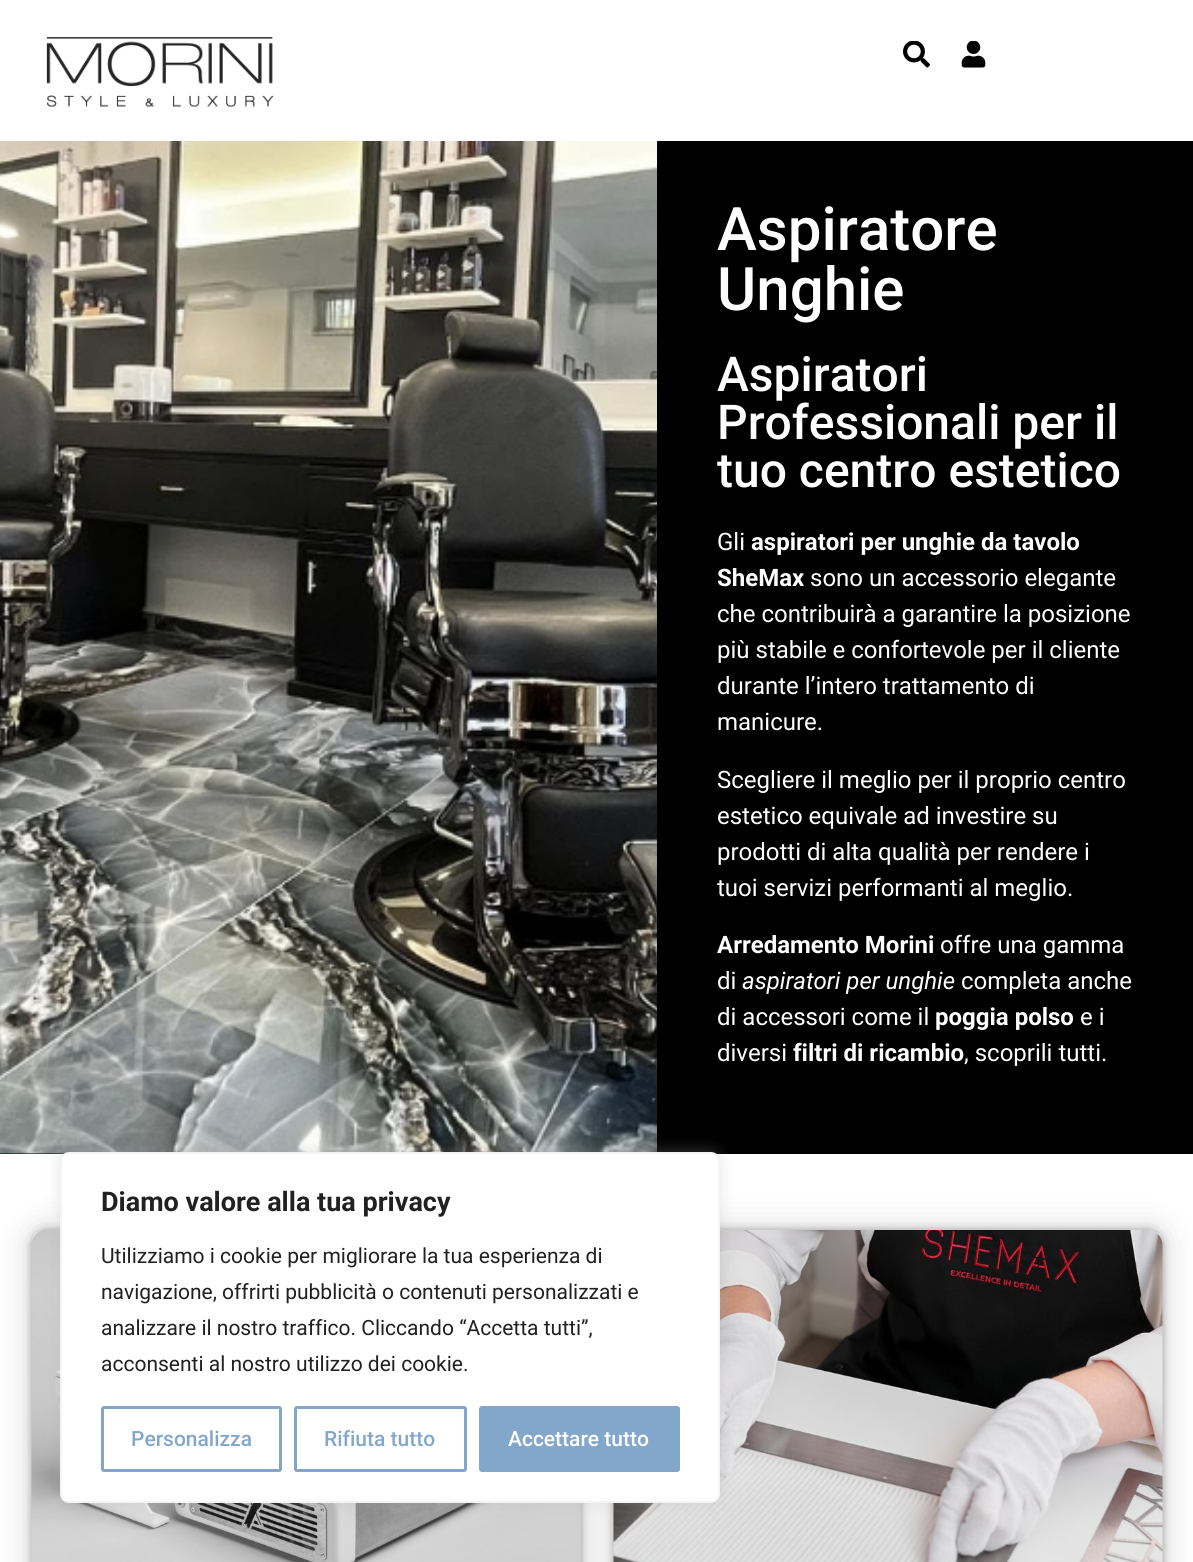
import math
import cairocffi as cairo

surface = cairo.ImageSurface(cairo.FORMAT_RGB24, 1193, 1562)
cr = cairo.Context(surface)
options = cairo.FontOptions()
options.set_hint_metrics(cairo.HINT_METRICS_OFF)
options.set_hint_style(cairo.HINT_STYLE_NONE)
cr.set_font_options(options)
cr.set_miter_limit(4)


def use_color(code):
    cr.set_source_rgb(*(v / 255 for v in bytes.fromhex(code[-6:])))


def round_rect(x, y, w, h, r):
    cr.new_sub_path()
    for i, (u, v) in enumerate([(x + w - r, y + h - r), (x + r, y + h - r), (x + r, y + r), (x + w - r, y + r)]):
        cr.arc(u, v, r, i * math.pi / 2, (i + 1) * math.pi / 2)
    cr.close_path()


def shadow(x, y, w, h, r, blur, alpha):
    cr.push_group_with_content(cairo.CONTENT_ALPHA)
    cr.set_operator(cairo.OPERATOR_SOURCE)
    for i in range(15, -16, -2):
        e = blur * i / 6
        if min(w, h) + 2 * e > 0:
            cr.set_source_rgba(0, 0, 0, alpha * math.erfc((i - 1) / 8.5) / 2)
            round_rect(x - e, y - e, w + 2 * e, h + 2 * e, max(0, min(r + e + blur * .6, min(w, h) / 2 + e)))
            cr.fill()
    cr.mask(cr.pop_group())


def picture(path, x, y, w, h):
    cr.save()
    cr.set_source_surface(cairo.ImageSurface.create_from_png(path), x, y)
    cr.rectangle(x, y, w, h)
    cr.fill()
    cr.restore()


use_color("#ffffff")
cr.paint()
picture("img1.png", 46, 37, 228, 70)
picture("img2.png", 903, 41, 27, 27)
picture("img3.png", 961, 41, 25, 27)
use_color("#000000")
cr.rectangle(0, 141, 1193, 1013)
cr.fill()
picture("img4.png", 0, 141, 657, 1013)
cr.select_font_face("Roboto Medium")
cr.set_font_size(60)
use_color("#ffffff")
cr.move_to(717, 250)
cr.show_text("Aspiratore")
cr.move_to(717, 310)
cr.show_text("Unghie")
cr.set_font_size(48)
cr.move_to(717, 391)
cr.show_text("Aspiratori")
cr.move_to(717, 439)
cr.show_text("Professionali per il")
cr.move_to(717, 487)
cr.show_text("tuo centro estetico")
cr.select_font_face("Roboto")
cr.set_font_size(24)
cr.move_to(717, 550)
cr.show_text("Gli")
cr.select_font_face("Roboto", cairo.FONT_SLANT_NORMAL, cairo.FONT_WEIGHT_BOLD)
cr.move_to(751, 550)
cr.show_text("aspiratori per unghie da tavolo")
cr.move_to(717, 586)
cr.show_text("SheMax")
cr.select_font_face("Roboto")
cr.move_to(810, 586)
cr.show_text("sono un accessorio elegante")
cr.move_to(717, 622)
cr.show_text("che contribuirà a garantire la posizione")
cr.move_to(717, 658)
cr.show_text("più stabile e confortevole per il cliente")
cr.move_to(717, 694)
cr.show_text("durante l’intero trattamento di")
cr.move_to(717, 730)
cr.show_text("manicure.")
cr.move_to(717, 788)
cr.show_text("Scegliere il meglio per il proprio centro")
cr.move_to(717, 824)
cr.show_text("estetico equivale ad investire su")
cr.move_to(717, 860)
cr.show_text("prodotti di alta qualità per rendere i")
cr.move_to(717, 896)
cr.show_text("tuoi servizi performanti al meglio.")
cr.select_font_face("Roboto", cairo.FONT_SLANT_NORMAL, cairo.FONT_WEIGHT_BOLD)
cr.move_to(717, 953)
cr.show_text("Arredamento Morini")
cr.select_font_face("Roboto")
cr.move_to(940, 953)
cr.show_text("offre una gamma")
cr.move_to(717, 989)
cr.show_text("di")
cr.select_font_face("Roboto", cairo.FONT_SLANT_ITALIC)
cr.move_to(742, 989)
cr.show_text("aspiratori per unghie")
cr.select_font_face("Roboto")
cr.move_to(961, 989)
cr.show_text("completa anche")
cr.move_to(717, 1025)
cr.show_text("di accessori come il")
cr.select_font_face("Roboto", cairo.FONT_SLANT_NORMAL, cairo.FONT_WEIGHT_BOLD)
cr.move_to(935, 1025)
cr.show_text("poggia polso")
cr.select_font_face("Roboto")
cr.move_to(1080, 1025)
cr.show_text("e i")
cr.move_to(717, 1061)
cr.show_text("diversi")
cr.select_font_face("Roboto", cairo.FONT_SLANT_NORMAL, cairo.FONT_WEIGHT_BOLD)
cr.move_to(793, 1061)
cr.show_text("filtri di ricambio")
cr.select_font_face("Roboto")
cr.move_to(964, 1061)
cr.show_text(", scoprili tutti.")
use_color("#9b9b9b")
shadow(30, 1229, 552, 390, 12, 15, 0.43)
use_color("#ffffff")
round_rect(31, 1230, 550, 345, 11)
cr.fill_preserve()
use_color("#eaeaea")
cr.stroke()
use_color("#a5a5a5")
shadow(32, 1230, 549, 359, 15, 4, 1)
use_color("#9b9b9b")
shadow(612, 1229, 552, 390, 12, 15, 0.43)
picture("img5.png", 31, 1230, 550, 332)
use_color("#ffffff")
round_rect(613, 1230, 550, 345, 11)
cr.fill_preserve()
use_color("#eaeaea")
cr.stroke()
use_color("#a5a5a5")
shadow(614, 1230, 549, 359, 15, 4, 1)
picture("img6.png", 613, 1230, 550, 332)
use_color("#acabab")
shadow(60, 1151, 660, 351, 9, 7.5, 0.3)
use_color("#ffffff")
round_rect(61, 1153, 658, 349, 8)
cr.fill_preserve()
use_color("#f4f4f4")
cr.stroke()
cr.select_font_face("Roboto", cairo.FONT_SLANT_NORMAL, cairo.FONT_WEIGHT_BOLD)
cr.set_font_size(27)
use_color("#212121")
cr.move_to(101, 1211)
cr.show_text("Diamo valore alla tua privacy")
cr.select_font_face("Roboto")
cr.set_font_size(21)
cr.move_to(101, 1263)
cr.show_text("Utilizziamo i cookie per migliorare la tua esperienza di")
cr.move_to(101, 1299)
cr.show_text("navigazione, offrirti pubblicità o contenuti personalizzati e")
cr.move_to(101, 1335)
cr.show_text("analizzare il nostro traffico. Cliccando “Accetta tutti”,")
cr.move_to(101, 1371)
cr.show_text("acconsenti al nostro utilizzo dei cookie.")
round_rect(102.5, 1407.5, 178, 63, 1.5)
use_color("#83a7ca")
cr.set_line_width(3)
cr.stroke()
cr.select_font_face("Roboto Medium")
cr.move_to(131, 1446)
cr.show_text("Personalizza")
round_rect(295.5, 1407.5, 170, 63, 1.5)
cr.stroke()
cr.move_to(324, 1446)
cr.show_text("Rifiuta tutto")
round_rect(480.5, 1407.5, 198, 63, 1.5)
cr.fill_preserve()
cr.stroke()
use_color("#ffffff")
cr.move_to(508, 1446)
cr.show_text("Accettare tutto")
surface.write_to_png("result.png")
